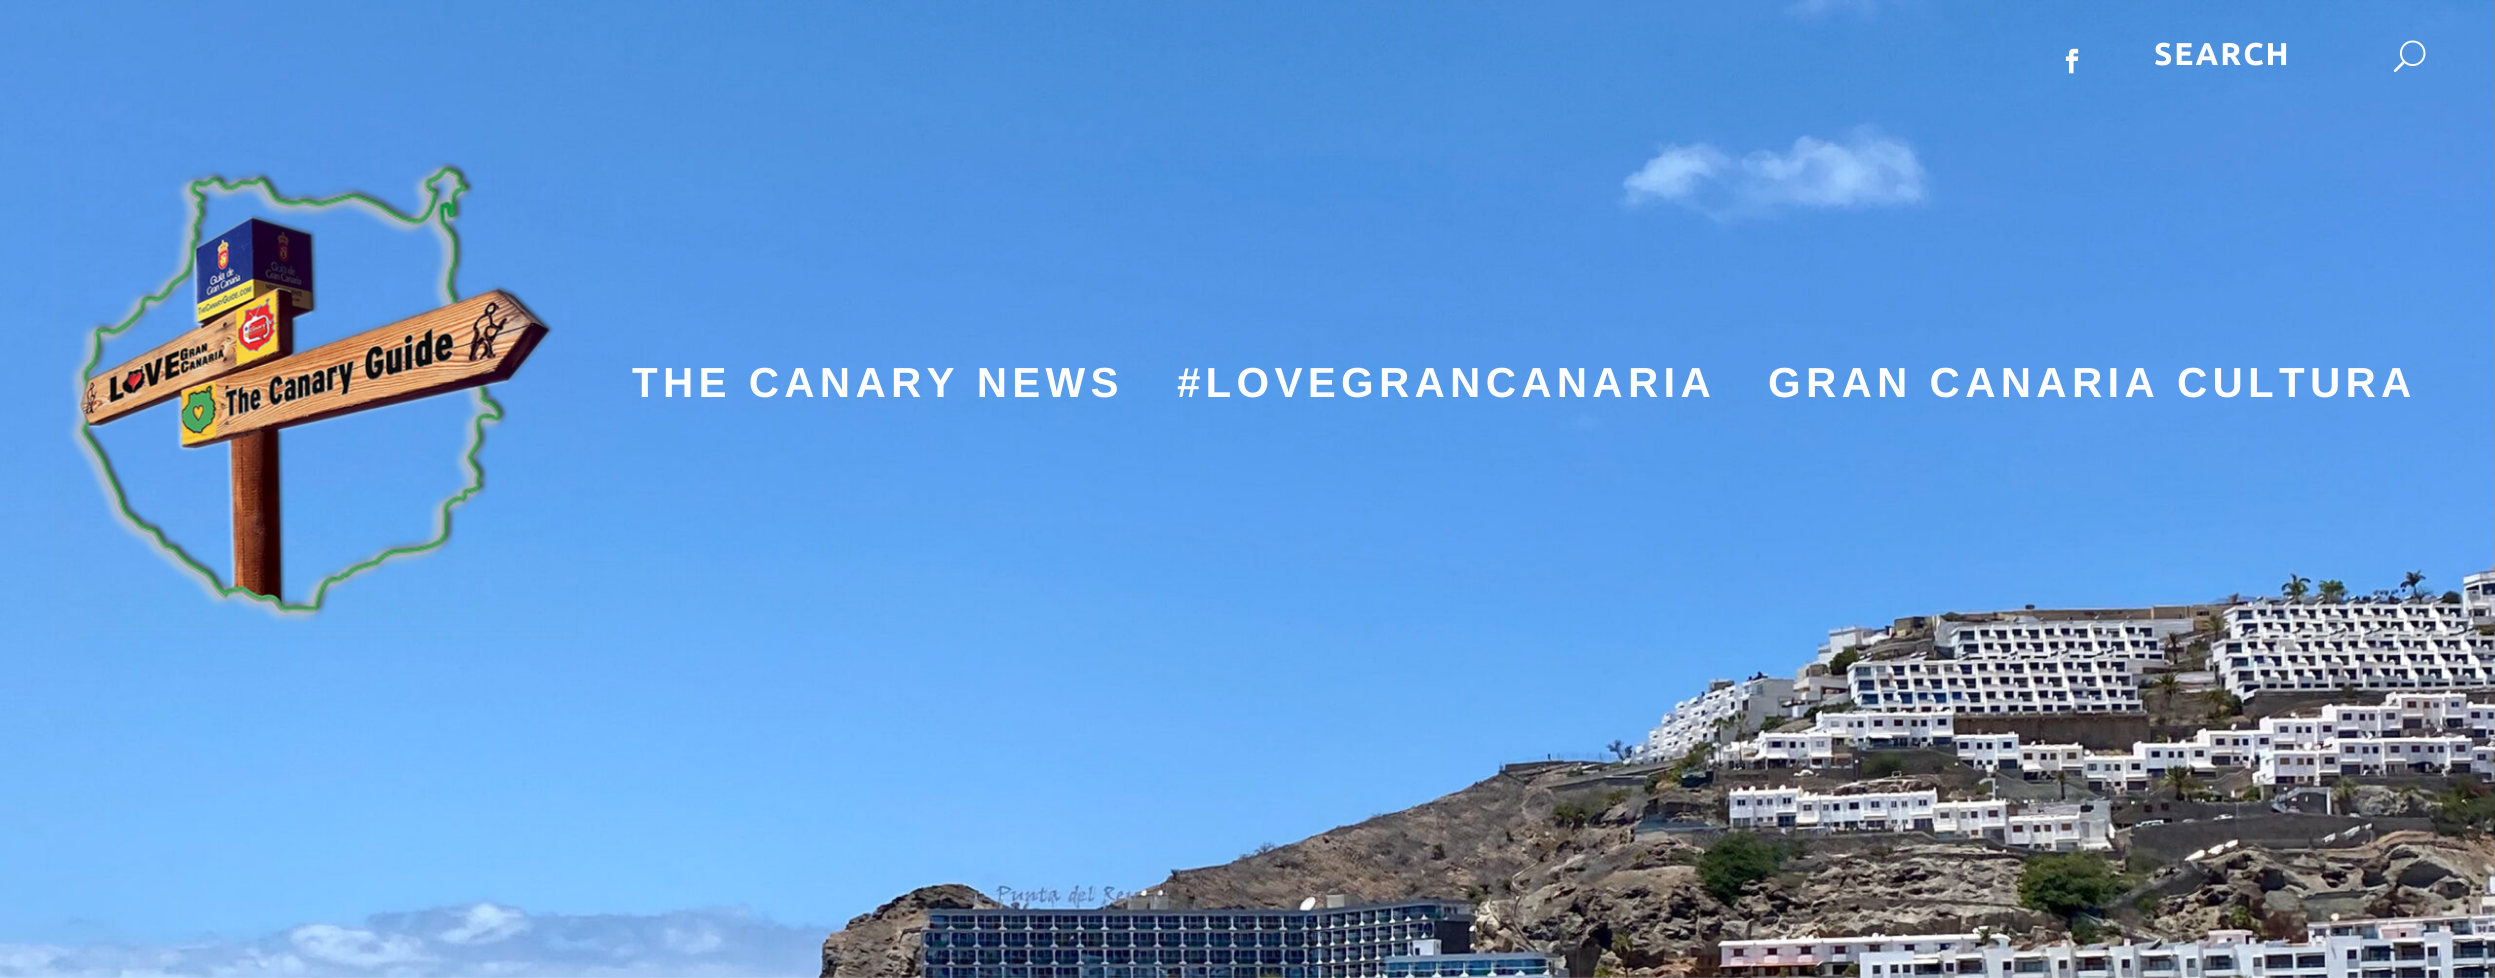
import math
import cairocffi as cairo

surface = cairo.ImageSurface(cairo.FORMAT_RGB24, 2495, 978)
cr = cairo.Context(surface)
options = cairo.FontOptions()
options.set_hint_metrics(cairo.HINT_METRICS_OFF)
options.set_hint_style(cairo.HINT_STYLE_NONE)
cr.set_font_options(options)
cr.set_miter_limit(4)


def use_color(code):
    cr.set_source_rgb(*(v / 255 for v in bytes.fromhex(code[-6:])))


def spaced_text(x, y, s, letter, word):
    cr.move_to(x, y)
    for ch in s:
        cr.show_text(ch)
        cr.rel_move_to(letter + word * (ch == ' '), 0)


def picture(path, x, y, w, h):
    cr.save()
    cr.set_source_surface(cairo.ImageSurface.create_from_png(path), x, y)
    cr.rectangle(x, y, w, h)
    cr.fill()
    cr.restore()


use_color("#ffffff")
cr.paint()
picture("img1.png", 0, 0, 2495, 978)
picture("img2.png", 2065, 48, 14, 26)
cr.select_font_face("Ubuntu", cairo.FONT_SLANT_NORMAL, cairo.FONT_WEIGHT_BOLD)
cr.set_font_size(31.5)
use_color("#ffffff")
spaced_text(2154, 65, "SEARCH", 2, 0)
picture("img3.png", 2393, 40, 33, 33)
picture("img4.png", 53, 160, 525, 479)
cr.select_font_face("Liberation Sans", cairo.FONT_SLANT_NORMAL, cairo.FONT_WEIGHT_BOLD)
cr.set_font_size(42)
spaced_text(632, 397, "THE CANARY NEWS", 5.25, 0)
spaced_text(1177, 397, "#LOVEGRANCANARIA", 5.25, 0)
spaced_text(1768, 397, "GRAN CANARIA CULTURA", 5.25, 0)
surface.write_to_png("result.png")
